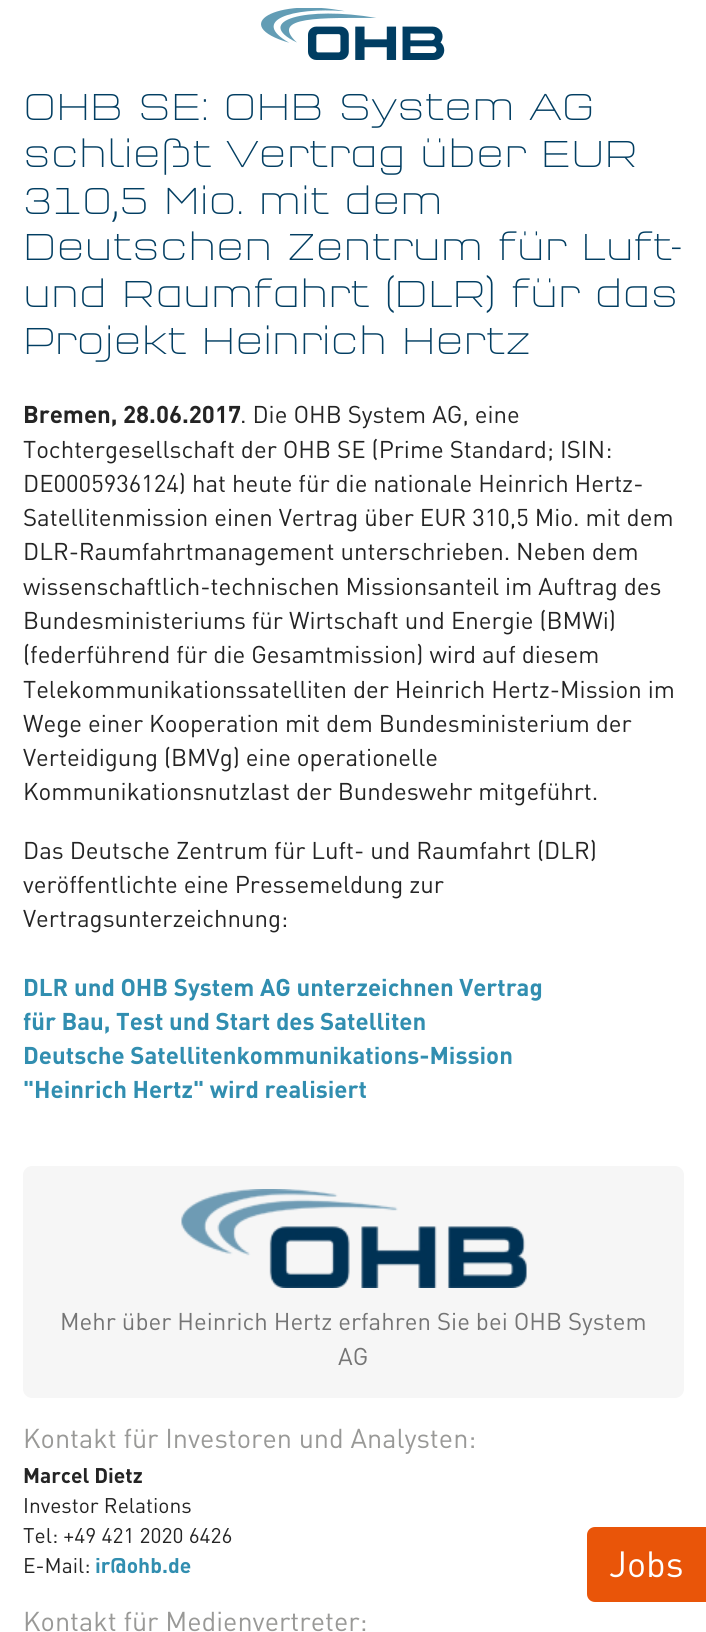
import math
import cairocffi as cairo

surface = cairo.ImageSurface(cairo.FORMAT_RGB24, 706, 1632)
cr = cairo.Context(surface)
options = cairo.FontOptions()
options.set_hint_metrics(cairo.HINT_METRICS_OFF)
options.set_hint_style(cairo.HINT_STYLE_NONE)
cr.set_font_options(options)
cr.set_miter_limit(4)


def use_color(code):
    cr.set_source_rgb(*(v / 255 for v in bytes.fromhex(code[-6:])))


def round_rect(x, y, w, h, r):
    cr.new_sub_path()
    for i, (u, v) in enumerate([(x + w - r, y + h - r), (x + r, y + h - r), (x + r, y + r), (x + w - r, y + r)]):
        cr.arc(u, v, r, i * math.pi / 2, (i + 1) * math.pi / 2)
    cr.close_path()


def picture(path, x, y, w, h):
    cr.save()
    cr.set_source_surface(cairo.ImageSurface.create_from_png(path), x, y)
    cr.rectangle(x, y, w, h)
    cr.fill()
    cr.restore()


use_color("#ffffff")
cr.paint()
picture("img1.png", 261, 8, 184, 52)
cr.select_font_face("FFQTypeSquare")
cr.set_font_size(39)
use_color("#023e62")
cr.move_to(23, 120)
cr.show_text("OHB SE: OHB System AG")
cr.move_to(23, 167)
cr.show_text("schließt Vertrag über EUR")
cr.move_to(23, 214)
cr.show_text("310,5 Mio. mit dem")
cr.move_to(23, 260)
cr.show_text("Deutschen Zentrum für Luft-")
cr.move_to(23, 307)
cr.show_text("und Raumfahrt (DLR) für das")
cr.move_to(23, 354)
cr.show_text("Projekt Heinrich Hertz")
cr.select_font_face("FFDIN")
cr.set_font_size(24)
use_color("#242424")
cr.move_to(23, 423)
cr.show_text("Bremen, 28.06.2017")
cr.select_font_face("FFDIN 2")
cr.move_to(240, 423)
cr.show_text(". Die OHB System AG, eine")
cr.move_to(23, 458)
cr.show_text("Tochtergesellschaft der OHB SE (Prime Standard; ISIN:")
cr.move_to(23, 492)
cr.show_text("DE0005936124) hat heute für die nationale Heinrich Hertz-")
cr.move_to(23, 526)
cr.show_text("Satellitenmission einen Vertrag über EUR 310,5 Mio. mit dem")
cr.move_to(23, 560)
cr.show_text("DLR-Raumfahrtmanagement unterschrieben. Neben dem")
cr.move_to(23, 595)
cr.show_text("wissenschaftlich-technischen Missionsanteil im Auftrag des")
cr.move_to(23, 629)
cr.show_text("Bundesministeriums für Wirtschaft und Energie (BMWi)")
cr.move_to(23, 663)
cr.show_text("(federführend für die Gesamtmission) wird auf diesem")
cr.move_to(23, 698)
cr.show_text("Telekommunikationssatelliten der Heinrich Hertz-Mission im")
cr.move_to(23, 732)
cr.show_text("Wege einer Kooperation mit dem Bundesministerium der")
cr.move_to(23, 766)
cr.show_text("Verteidigung (BMVg) eine operationelle")
cr.move_to(23, 800)
cr.show_text("Kommunikationsnutzlast der Bundeswehr mitgeführt.")
cr.move_to(23, 859)
cr.show_text("Das Deutsche Zentrum für Luft- und Raumfahrt (DLR)")
cr.move_to(23, 893)
cr.show_text("veröffentlichte eine Pressemeldung zur")
cr.move_to(23, 927)
cr.show_text("Vertragsunterzeichnung:")
cr.select_font_face("FFDIN")
use_color("#318eb0")
cr.move_to(23, 996)
cr.show_text("DLR und OHB System AG unterzeichnen Vertrag")
cr.move_to(23, 1030)
cr.show_text("für Bau, Test und Start des Satelliten")
cr.move_to(23, 1064)
cr.show_text("Deutsche Satellitenkommunikations-Mission")
cr.move_to(23, 1098)
cr.show_text("\"Heinrich Hertz\" wird realisiert")
use_color("#f6f6f6")
round_rect(23, 1166, 661, 232, 9)
cr.fill()
picture("img2.png", 181, 1189, 346, 99)
cr.select_font_face("FFDIN 2")
use_color("#747474")
cr.move_to(60, 1330)
cr.show_text("Mehr über Heinrich Hertz erfahren Sie bei OHB System")
cr.move_to(338, 1365)
cr.show_text("AG")
cr.set_font_size(27)
use_color("#999997")
cr.move_to(23, 1448)
cr.show_text("Kontakt für Investoren und Analysten:")
cr.select_font_face("FFDIN")
cr.set_font_size(21)
use_color("#242424")
cr.move_to(23, 1483)
cr.show_text("Marcel Dietz")
cr.select_font_face("FFDIN 2")
cr.move_to(23, 1513)
cr.show_text("Investor Relations")
cr.move_to(23, 1543)
cr.show_text("Tel: +49 421 2020 6426")
cr.move_to(23, 1573)
cr.show_text("E-Mail:")
cr.select_font_face("FFDIN")
use_color("#318eb0")
cr.move_to(95, 1573)
cr.show_text("ir@ohb.de")
cr.select_font_face("FFDIN 2")
cr.set_font_size(27)
use_color("#999997")
cr.move_to(23, 1631)
cr.show_text("Kontakt für Medienvertreter:")
use_color("#e95509")
cr.new_path()
cr.move_to(595, 1527)
cr.line_to(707, 1527)
cr.line_to(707, 1602)
cr.line_to(595, 1602)
cr.curve_to(590.5, 1602, 587, 1598.5, 587, 1594)
cr.line_to(587, 1535)
cr.curve_to(587, 1530.5, 590.5, 1527, 595, 1527)
cr.close_path()
cr.fill()
cr.set_font_size(36)
use_color("#ffffff")
cr.move_to(609, 1577)
cr.show_text("Jobs")
surface.write_to_png("result.png")
